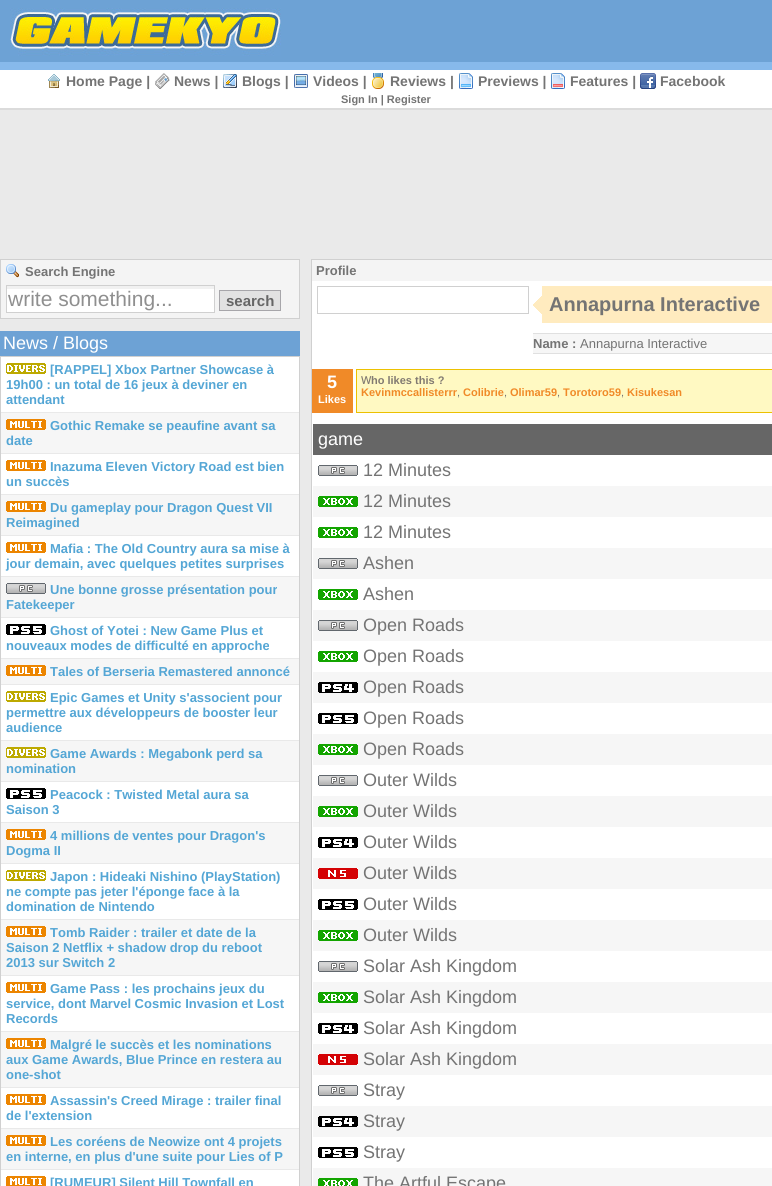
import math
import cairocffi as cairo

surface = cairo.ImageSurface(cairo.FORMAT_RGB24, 772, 1186)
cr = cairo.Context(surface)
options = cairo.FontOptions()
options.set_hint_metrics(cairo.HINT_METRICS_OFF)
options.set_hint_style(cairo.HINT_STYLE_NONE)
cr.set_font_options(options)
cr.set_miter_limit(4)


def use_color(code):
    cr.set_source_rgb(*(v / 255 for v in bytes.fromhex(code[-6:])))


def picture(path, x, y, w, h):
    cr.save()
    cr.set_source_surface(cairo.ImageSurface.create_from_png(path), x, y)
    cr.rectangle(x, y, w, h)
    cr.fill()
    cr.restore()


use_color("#eaeaea")
cr.paint()
use_color("#6da2d5")
cr.rectangle(0, 0, 772, 62)
cr.fill()
use_color("#87b9eb")
cr.rectangle(0, 62, 772, 8)
cr.fill()
picture("img1.png", 10, 8, 271, 48)
use_color("#ffffff")
cr.rectangle(0, 70, 772, 38)
cr.fill()
picture("img2.png", 48, 74, 12, 14)
cr.select_font_face("Liberation Sans", cairo.FONT_SLANT_NORMAL, cairo.FONT_WEIGHT_BOLD)
cr.set_font_size(14)
use_color("#747474")
cr.move_to(66, 86)
cr.show_text("Home Page |")
picture("img3.png", 155, 73, 15, 16)
cr.move_to(174, 86)
cr.show_text("News |")
picture("img4.png", 223, 74, 14, 14)
cr.move_to(242, 86)
cr.show_text("Blogs |")
picture("img5.png", 294, 74, 14, 14)
cr.move_to(313, 86)
cr.show_text("Videos |")
picture("img6.png", 372, 73, 12, 16)
cr.move_to(390, 86)
cr.show_text("Reviews |")
picture("img7.png", 459, 73, 14, 16)
cr.move_to(478, 86)
cr.show_text("Previews |")
picture("img8.png", 551, 73, 14, 16)
cr.move_to(570, 86)
cr.show_text("Features |")
picture("img9.png", 640, 73, 16, 16)
cr.move_to(660, 86)
cr.show_text("Facebook")
use_color("#dbdbdb")
cr.rectangle(0, 108, 772, 2)
cr.fill()
cr.set_font_size(11)
use_color("#747474")
cr.move_to(341, 103)
cr.show_text("Sign In | Register")
use_color("#f4f4f4")
cr.rectangle(0.5, 259.5, 299, 59)
cr.fill_preserve()
use_color("#d0d0d0")
cr.set_line_width(1)
cr.stroke()
picture("img10.png", 6, 264, 13, 14)
cr.set_font_size(13)
use_color("#747474")
cr.move_to(25, 276)
cr.show_text("Search Engine")
use_color("#ffffff")
cr.rectangle(7, 289, 207, 23)
cr.fill()
use_color("#f1f1f1")
cr.rectangle(6, 286, 209, 3)
cr.fill()
cr.rectangle(6.5, 285.5, 208, 27)
use_color("#d0d0d0")
cr.stroke()
cr.select_font_face("Liberation Sans")
cr.set_font_size(21)
use_color("#8f8f8f")
cr.move_to(8, 306)
cr.show_text("write something...")
use_color("#e2e2e2")
cr.rectangle(219.5, 290.5, 61, 20)
cr.fill_preserve()
use_color("#a7a6aa")
cr.stroke()
cr.select_font_face("Liberation Sans", cairo.FONT_SLANT_NORMAL, cairo.FONT_WEIGHT_BOLD)
cr.set_font_size(15)
use_color("#666666")
cr.move_to(226, 306)
cr.show_text("search")
use_color("#6da2d5")
cr.rectangle(0, 331, 300, 25)
cr.fill()
cr.select_font_face("Liberation Sans")
cr.set_font_size(18)
use_color("#ffffff")
cr.move_to(3, 349)
cr.show_text("News / Blogs")
cr.rectangle(0.5, 356.5, 299, 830)
cr.fill_preserve()
use_color("#d0d0d0")
cr.stroke()
use_color("#e9e9e9")
cr.rectangle(1, 412, 298, 1)
cr.fill()
picture("img11.png", 6, 363, 40, 11)
cr.select_font_face("Liberation Sans", cairo.FONT_SLANT_NORMAL, cairo.FONT_WEIGHT_BOLD)
cr.set_font_size(13)
use_color("#54a6d5")
cr.move_to(50, 374)
cr.show_text("[RAPPEL] Xbox Partner Showcase à")
cr.move_to(6, 389)
cr.show_text("19h00 : un total de 16 jeux à deviner en")
cr.move_to(6, 404)
cr.show_text("attendant")
use_color("#f6f6f6")
cr.rectangle(1, 413, 298, 40)
cr.fill()
use_color("#e9e9e9")
cr.rectangle(1, 453, 298, 1)
cr.fill()
picture("img12.png", 6, 419, 40, 11)
use_color("#54a6d5")
cr.move_to(50, 430)
cr.show_text("Gothic Remake se peaufine avant sa")
cr.move_to(6, 445)
cr.show_text("date")
use_color("#e9e9e9")
cr.rectangle(1, 494, 298, 1)
cr.fill()
picture("img13.png", 6, 460, 40, 11)
use_color("#54a6d5")
cr.move_to(50, 471)
cr.show_text("Inazuma Eleven Victory Road est bien")
cr.move_to(6, 486)
cr.show_text("un succès")
use_color("#f6f6f6")
cr.rectangle(1, 495, 298, 40)
cr.fill()
use_color("#e9e9e9")
cr.rectangle(1, 535, 298, 1)
cr.fill()
picture("img12.png", 6, 501, 40, 11)
use_color("#54a6d5")
cr.move_to(50, 512)
cr.show_text("Du gameplay pour Dragon Quest VII")
cr.move_to(6, 527)
cr.show_text("Reimagined")
use_color("#e9e9e9")
cr.rectangle(1, 576, 298, 1)
cr.fill()
picture("img13.png", 6, 542, 40, 11)
use_color("#54a6d5")
cr.move_to(50, 553)
cr.show_text("Mafia : The Old Country aura sa mise à")
cr.move_to(6, 568)
cr.show_text("jour demain, avec quelques petites surprises")
use_color("#f6f6f6")
cr.rectangle(1, 577, 298, 40)
cr.fill()
use_color("#e9e9e9")
cr.rectangle(1, 617, 298, 1)
cr.fill()
picture("img14.png", 6, 583, 40, 11)
use_color("#54a6d5")
cr.move_to(50, 594)
cr.show_text("Une bonne grosse présentation pour")
cr.move_to(6, 609)
cr.show_text("Fatekeeper")
use_color("#e9e9e9")
cr.rectangle(1, 658, 298, 1)
cr.fill()
picture("img15.png", 6, 624, 40, 11)
use_color("#54a6d5")
cr.move_to(50, 635)
cr.show_text("Ghost of Yotei : New Game Plus et")
cr.move_to(6, 650)
cr.show_text("nouveaux modes de difficulté en approche")
use_color("#f6f6f6")
cr.rectangle(1, 659, 298, 25)
cr.fill()
use_color("#e9e9e9")
cr.rectangle(1, 684, 298, 1)
cr.fill()
picture("img12.png", 6, 665, 40, 11)
use_color("#54a6d5")
cr.move_to(50, 676)
cr.show_text("Tales of Berseria Remastered annoncé")
use_color("#e9e9e9")
cr.rectangle(1, 740, 298, 1)
cr.fill()
picture("img11.png", 6, 691, 40, 11)
use_color("#54a6d5")
cr.move_to(50, 702)
cr.show_text("Epic Games et Unity s'associent pour")
cr.move_to(6, 717)
cr.show_text("permettre aux développeurs de booster leur")
cr.move_to(6, 732)
cr.show_text("audience")
use_color("#f6f6f6")
cr.rectangle(1, 741, 298, 40)
cr.fill()
use_color("#e9e9e9")
cr.rectangle(1, 781, 298, 1)
cr.fill()
picture("img16.png", 6, 747, 40, 11)
use_color("#54a6d5")
cr.move_to(50, 758)
cr.show_text("Game Awards : Megabonk perd sa")
cr.move_to(6, 773)
cr.show_text("nomination")
use_color("#e9e9e9")
cr.rectangle(1, 822, 298, 1)
cr.fill()
picture("img15.png", 6, 788, 40, 11)
use_color("#54a6d5")
cr.move_to(50, 799)
cr.show_text("Peacock : Twisted Metal aura sa")
cr.move_to(6, 814)
cr.show_text("Saison 3")
use_color("#f6f6f6")
cr.rectangle(1, 823, 298, 40)
cr.fill()
use_color("#e9e9e9")
cr.rectangle(1, 863, 298, 1)
cr.fill()
picture("img12.png", 6, 829, 40, 11)
use_color("#54a6d5")
cr.move_to(50, 840)
cr.show_text("4 millions de ventes pour Dragon's")
cr.move_to(6, 855)
cr.show_text("Dogma II")
use_color("#e9e9e9")
cr.rectangle(1, 919, 298, 1)
cr.fill()
picture("img11.png", 6, 870, 40, 11)
use_color("#54a6d5")
cr.move_to(50, 881)
cr.show_text("Japon : Hideaki Nishino (PlayStation)")
cr.move_to(6, 896)
cr.show_text("ne compte pas jeter l'éponge face à la")
cr.move_to(6, 911)
cr.show_text("domination de Nintendo")
use_color("#f6f6f6")
cr.rectangle(1, 920, 298, 55)
cr.fill()
use_color("#e9e9e9")
cr.rectangle(1, 975, 298, 1)
cr.fill()
picture("img12.png", 6, 926, 40, 11)
use_color("#54a6d5")
cr.move_to(50, 937)
cr.show_text("Tomb Raider : trailer et date de la")
cr.move_to(6, 952)
cr.show_text("Saison 2 Netflix + shadow drop du reboot")
cr.move_to(6, 967)
cr.show_text("2013 sur Switch 2")
use_color("#e9e9e9")
cr.rectangle(1, 1031, 298, 1)
cr.fill()
picture("img13.png", 6, 982, 40, 11)
use_color("#54a6d5")
cr.move_to(50, 993)
cr.show_text("Game Pass : les prochains jeux du")
cr.move_to(6, 1008)
cr.show_text("service, dont Marvel Cosmic Invasion et Lost")
cr.move_to(6, 1023)
cr.show_text("Records")
use_color("#f6f6f6")
cr.rectangle(1, 1032, 298, 55)
cr.fill()
use_color("#e9e9e9")
cr.rectangle(1, 1087, 298, 1)
cr.fill()
picture("img12.png", 6, 1038, 40, 11)
use_color("#54a6d5")
cr.move_to(50, 1049)
cr.show_text("Malgré le succès et les nominations")
cr.move_to(6, 1064)
cr.show_text("aux Game Awards, Blue Prince en restera au")
cr.move_to(6, 1079)
cr.show_text("one-shot")
use_color("#e9e9e9")
cr.rectangle(1, 1128, 298, 1)
cr.fill()
picture("img13.png", 6, 1094, 40, 11)
use_color("#54a6d5")
cr.move_to(50, 1105)
cr.show_text("Assassin's Creed Mirage : trailer final")
cr.move_to(6, 1120)
cr.show_text("de l'extension")
use_color("#f6f6f6")
cr.rectangle(1, 1129, 298, 40)
cr.fill()
use_color("#e9e9e9")
cr.rectangle(1, 1169, 298, 1)
cr.fill()
picture("img12.png", 6, 1135, 40, 11)
use_color("#54a6d5")
cr.move_to(50, 1146)
cr.show_text("Les coréens de Neowize ont 4 projets")
cr.move_to(6, 1161)
cr.show_text("en interne, en plus d'une suite pour Lies of P")
picture("img17.png", 6, 1176, 40, 10)
cr.move_to(50, 1187)
cr.show_text("[RUMEUR] Silent Hill Townfall en")
use_color("#f4f4f4")
cr.rectangle(312, 260, 460, 21)
cr.fill()
cr.rectangle(311.5, 259.5, 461, 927)
use_color("#d0d0d0")
cr.stroke()
use_color("#747474")
cr.move_to(316, 275)
cr.show_text("Profile")
use_color("#ffffff")
cr.rectangle(312, 281, 460, 905)
cr.fill()
cr.rectangle(317.5, 286.5, 211, 27)
use_color("#d0d0d0")
cr.stroke()
picture("img18.png", 533, 296, 9, 18)
use_color("#ffebbf")
cr.rectangle(542, 286, 230, 37)
cr.fill()
cr.set_font_size(20)
use_color("#747474")
cr.move_to(549, 311)
cr.show_text("Annapurna Interactive")
use_color("#f6f6f6")
cr.rectangle(533, 334, 239, 19)
cr.fill()
use_color("#e0e0e0")
cr.rectangle(533, 333, 239, 1)
cr.fill()
cr.rectangle(533, 353, 239, 1)
cr.fill()
cr.set_font_size(13)
use_color("#747474")
cr.move_to(533, 348)
cr.show_text("Name :")
cr.select_font_face("Liberation Sans")
cr.move_to(580, 348)
cr.show_text("Annapurna Interactive")
use_color("#f08a28")
cr.rectangle(312, 369, 41, 44)
cr.fill()
cr.select_font_face("Liberation Sans", cairo.FONT_SLANT_NORMAL, cairo.FONT_WEIGHT_BOLD)
cr.set_font_size(18)
use_color("#ffffff")
cr.move_to(327, 388)
cr.show_text("5")
cr.set_font_size(11)
cr.move_to(318, 403)
cr.show_text("Likes")
use_color("#fff9c2")
cr.rectangle(356.5, 369.5, 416, 43)
cr.fill_preserve()
use_color("#ecc101")
cr.stroke()
cr.select_font_face("Noto Sans Medium")
use_color("#817a71")
cr.move_to(361, 384)
cr.show_text("W")
cr.select_font_face("Liberation Sans", cairo.FONT_SLANT_NORMAL, cairo.FONT_WEIGHT_BOLD)
cr.move_to(371, 384)
cr.show_text("ho likes this ?")
use_color("#f08a28")
cr.move_to(361, 396)
cr.show_text("Kevinmccallisterrr")
cr.select_font_face("Liberation Sans")
use_color("#747474")
cr.move_to(457, 396)
cr.show_text(",")
cr.select_font_face("Liberation Sans", cairo.FONT_SLANT_NORMAL, cairo.FONT_WEIGHT_BOLD)
use_color("#f08a28")
cr.move_to(463, 396)
cr.show_text("Colibrie")
cr.select_font_face("Liberation Sans")
use_color("#747474")
cr.move_to(504, 396)
cr.show_text(",")
cr.select_font_face("Liberation Sans", cairo.FONT_SLANT_NORMAL, cairo.FONT_WEIGHT_BOLD)
use_color("#f08a28")
cr.move_to(510, 396)
cr.show_text("Olimar59")
cr.select_font_face("Liberation Sans")
use_color("#747474")
cr.move_to(557, 396)
cr.show_text(",")
cr.select_font_face("Liberation Sans", cairo.FONT_SLANT_NORMAL, cairo.FONT_WEIGHT_BOLD)
use_color("#f08a28")
cr.move_to(563, 396)
cr.show_text("Torotoro59")
cr.select_font_face("Liberation Sans")
use_color("#747474")
cr.move_to(621, 396)
cr.show_text(",")
cr.select_font_face("Liberation Sans", cairo.FONT_SLANT_NORMAL, cairo.FONT_WEIGHT_BOLD)
use_color("#f08a28")
cr.move_to(627, 396)
cr.show_text("Kisukesan")
use_color("#666666")
cr.rectangle(313, 424, 459, 31)
cr.fill()
cr.select_font_face("Liberation Sans")
cr.set_font_size(18)
use_color("#ffffff")
cr.move_to(318, 445)
cr.show_text("game")
picture("img19.png", 318, 465, 40, 11)
use_color("#747474")
cr.move_to(363, 476)
cr.show_text("12 Minutes")
use_color("#f6f6f6")
cr.rectangle(313, 486, 459, 31)
cr.fill()
picture("img20.png", 318, 496, 40, 11)
use_color("#747474")
cr.move_to(363, 507)
cr.show_text("12 Minutes")
picture("img21.png", 318, 527, 40, 11)
cr.move_to(363, 538)
cr.show_text("12 Minutes")
use_color("#f6f6f6")
cr.rectangle(313, 548, 459, 31)
cr.fill()
picture("img14.png", 318, 558, 40, 11)
use_color("#747474")
cr.move_to(363, 569)
cr.show_text("Ashen")
picture("img21.png", 318, 589, 40, 11)
cr.move_to(363, 600)
cr.show_text("Ashen")
use_color("#f6f6f6")
cr.rectangle(313, 610, 459, 31)
cr.fill()
picture("img14.png", 318, 620, 40, 11)
use_color("#747474")
cr.move_to(363, 631)
cr.show_text("Open Roads")
picture("img21.png", 318, 651, 40, 11)
cr.move_to(363, 662)
cr.show_text("Open Roads")
use_color("#f6f6f6")
cr.rectangle(313, 672, 459, 31)
cr.fill()
picture("img22.png", 318, 682, 40, 11)
use_color("#747474")
cr.move_to(363, 693)
cr.show_text("Open Roads")
picture("img15.png", 318, 713, 40, 11)
cr.move_to(363, 724)
cr.show_text("Open Roads")
use_color("#f6f6f6")
cr.rectangle(313, 734, 459, 31)
cr.fill()
picture("img20.png", 318, 744, 40, 11)
use_color("#747474")
cr.move_to(363, 755)
cr.show_text("Open Roads")
picture("img19.png", 318, 775, 40, 11)
cr.move_to(363, 786)
cr.show_text("Outer Wilds")
use_color("#f6f6f6")
cr.rectangle(313, 796, 459, 31)
cr.fill()
picture("img20.png", 318, 806, 40, 11)
use_color("#747474")
cr.move_to(363, 817)
cr.show_text("Outer Wilds")
picture("img23.png", 318, 837, 40, 11)
cr.move_to(363, 848)
cr.show_text("Outer Wilds")
use_color("#f6f6f6")
cr.rectangle(313, 858, 459, 31)
cr.fill()
picture("img24.png", 318, 868, 40, 11)
use_color("#747474")
cr.move_to(363, 879)
cr.show_text("Outer Wilds")
picture("img15.png", 318, 899, 40, 11)
cr.move_to(363, 910)
cr.show_text("Outer Wilds")
use_color("#f6f6f6")
cr.rectangle(313, 920, 459, 31)
cr.fill()
picture("img20.png", 318, 930, 40, 11)
use_color("#747474")
cr.move_to(363, 941)
cr.show_text("Outer Wilds")
picture("img19.png", 318, 961, 40, 11)
cr.move_to(363, 972)
cr.show_text("Solar Ash Kingdom")
use_color("#f6f6f6")
cr.rectangle(313, 982, 459, 31)
cr.fill()
picture("img20.png", 318, 992, 40, 11)
use_color("#747474")
cr.move_to(363, 1003)
cr.show_text("Solar Ash Kingdom")
picture("img23.png", 318, 1023, 40, 11)
cr.move_to(363, 1034)
cr.show_text("Solar Ash Kingdom")
use_color("#f6f6f6")
cr.rectangle(313, 1044, 459, 31)
cr.fill()
picture("img24.png", 318, 1054, 40, 11)
use_color("#747474")
cr.move_to(363, 1065)
cr.show_text("Solar Ash Kingdom")
picture("img19.png", 318, 1085, 40, 11)
cr.move_to(363, 1096)
cr.show_text("Stray")
use_color("#f6f6f6")
cr.rectangle(313, 1106, 459, 31)
cr.fill()
picture("img22.png", 318, 1116, 40, 11)
use_color("#747474")
cr.move_to(363, 1127)
cr.show_text("Stray")
picture("img15.png", 318, 1147, 40, 11)
cr.move_to(363, 1158)
cr.show_text("Stray")
use_color("#f6f6f6")
cr.rectangle(313, 1168, 459, 18)
cr.fill()
picture("img25.png", 318, 1178, 40, 8)
use_color("#747474")
cr.move_to(363, 1189)
cr.show_text("The Artful Escape")
surface.write_to_png("result.png")
